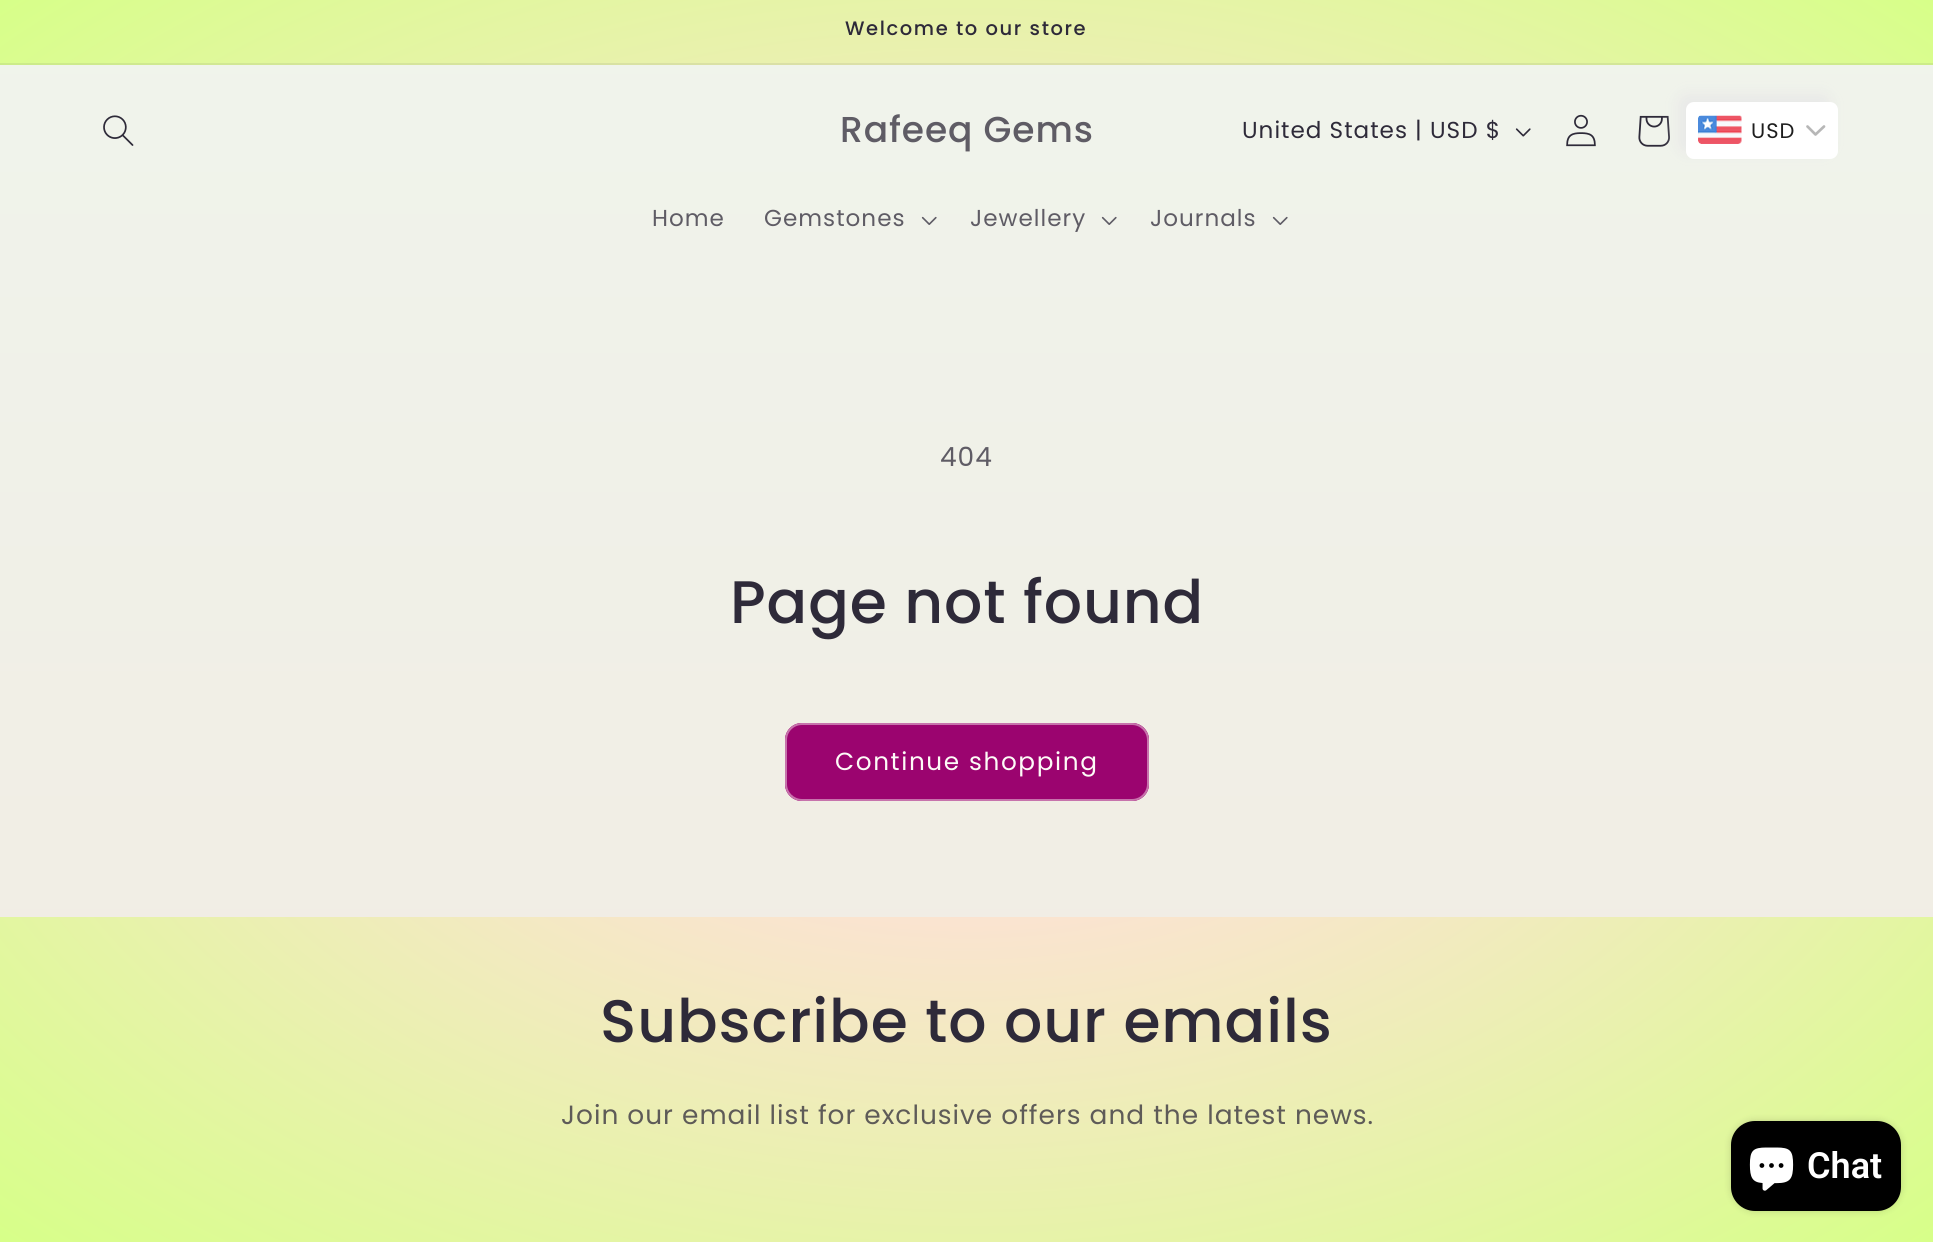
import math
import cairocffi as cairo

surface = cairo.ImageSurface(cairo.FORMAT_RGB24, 1933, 1242)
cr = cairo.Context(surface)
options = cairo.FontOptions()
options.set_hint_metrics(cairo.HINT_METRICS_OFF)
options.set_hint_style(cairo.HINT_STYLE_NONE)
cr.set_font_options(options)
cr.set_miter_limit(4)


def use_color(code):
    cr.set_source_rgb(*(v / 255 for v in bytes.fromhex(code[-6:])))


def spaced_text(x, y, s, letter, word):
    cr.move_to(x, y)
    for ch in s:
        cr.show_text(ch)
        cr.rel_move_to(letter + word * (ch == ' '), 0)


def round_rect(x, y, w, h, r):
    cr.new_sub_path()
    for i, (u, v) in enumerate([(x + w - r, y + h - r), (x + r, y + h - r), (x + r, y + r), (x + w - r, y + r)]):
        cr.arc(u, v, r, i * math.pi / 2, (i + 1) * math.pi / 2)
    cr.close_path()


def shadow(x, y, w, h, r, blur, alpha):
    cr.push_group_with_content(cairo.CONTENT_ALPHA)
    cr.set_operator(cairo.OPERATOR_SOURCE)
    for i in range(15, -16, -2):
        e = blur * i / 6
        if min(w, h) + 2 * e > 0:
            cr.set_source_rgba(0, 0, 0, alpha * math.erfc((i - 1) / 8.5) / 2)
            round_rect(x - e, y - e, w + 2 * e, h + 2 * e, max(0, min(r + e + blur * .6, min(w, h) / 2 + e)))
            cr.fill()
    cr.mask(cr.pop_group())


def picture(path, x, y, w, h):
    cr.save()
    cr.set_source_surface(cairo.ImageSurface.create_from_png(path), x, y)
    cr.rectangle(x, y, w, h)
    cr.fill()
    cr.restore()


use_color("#ffffff")
cr.paint()
gradient = cairo.LinearGradient(967, 0, 967, 1242)
gradient.add_color_stop_rgba(0, 0.941, 0.957, 0.925, 1)
gradient.add_color_stop_rgba(1, 0.945, 0.922, 0.886, 1)
cr.set_source(gradient)
cr.rectangle(0, 65, 1933, 852)
cr.fill()
gradient = cairo.RadialGradient(0, 0, 0, 0, 0, 1)
gradient.set_matrix(cairo.Matrix(1 / 1367, 0, 0, 1 / 878, -1 * 967 / 1367, -1 * 621 / 878))
gradient.add_color_stop_rgba(0, 1, 0.898, 0.898, 1)
gradient.add_color_stop_rgba(0.25, 1, 0.878, 0.855, 1)
gradient.add_color_stop_rgba(1, 0.843, 1, 0.537, 1)
cr.set_source(gradient)
cr.rectangle(0, 0, 1933, 63)
cr.fill()
gradient = cairo.RadialGradient(0, 0, 0, 0, 0, 1)
gradient.set_matrix(cairo.Matrix(1 / 1367, 0, 0, 1 / 878, -1 * 967 / 1367, -1 * 621 / 878))
gradient.add_color_stop_rgba(0, 0.933, 0.839, 0.843, 1)
gradient.add_color_stop_rgba(0.25, 0.933, 0.82, 0.804, 1)
gradient.add_color_stop_rgba(1, 0.788, 0.933, 0.514, 1)
cr.set_source(gradient)
cr.rectangle(0, 63, 1933, 2)
cr.fill()
cr.select_font_face("Poppins Medium")
cr.set_font_size(19.5)
use_color("#2e2a39")
spaced_text(845, 35, "Welcome to our store", 1.6, 0)
picture("img1.png", 103, 115, 31, 31)
cr.set_font_size(36)
use_color("#5f5c65")
spaced_text(840, 142, "Rafeeq Gems", 0.9, 0)
cr.select_font_face("Poppins")
cr.set_font_size(23.1)
use_color("#2e2a39")
spaced_text(1242, 138, "United States | USD $", 1, 0)
picture("img2.png", 1515, 128, 16, 9)
picture("img3.png", 1566, 114, 30, 33)
picture("img4.png", 1638, 115, 32, 32)
use_color("#e8e8e8")
shadow(1679, 95, 151, 57, 8, 7.5, 1)
use_color("#ffffff")
round_rect(1686, 102, 152, 57, 8)
cr.fill()
picture("img5.png", 1698, 115, 44, 29)
cr.set_font_size(21)
use_color("#1e1e1e")
spaced_text(1751, 138, "USD", 1, 0)
cr.new_path()
cr.move_to(1807.5, 126.5)
cr.line_to(1815.5, 134.5)
cr.line_to(1824, 126.5)
use_color("#b7b7b7")
cr.set_line_width(2.7)
cr.set_line_cap(cairo.LINE_CAP_ROUND)
cr.set_line_join(cairo.LINE_JOIN_ROUND)
cr.stroke()
cr.set_font_size(23.1)
use_color("#5f5c65")
spaced_text(652, 226, "Home", 1, 0)
spaced_text(764, 226, "Gemstones", 1, 0)
picture("img6.png", 921, 216, 16, 9)
spaced_text(970, 226, "Jewellery", 1, 0)
picture("img6.png", 1101, 216, 16, 9)
spaced_text(1150, 226, "Journals", 1, 0)
picture("img6.png", 1272, 216, 16, 9)
cr.set_font_size(26.4)
spaced_text(940, 466, "404", 1, 0)
cr.select_font_face("Poppins Medium")
cr.set_font_size(60)
use_color("#2e2a39")
spaced_text(730, 623, "Page not found", 0.9, 0)
use_color("#9b046f")
round_rect(785, 723, 364, 78, 17)
cr.fill()
round_rect(786, 724, 362, 76, 16)
cr.set_line_width(2)
cr.set_line_cap(cairo.LINE_CAP_BUTT)
cr.set_line_join(cairo.LINE_JOIN_MITER)
cr.stroke()
round_rect(786, 724, 362, 76, 16)
cr.set_source_rgba(0.992, 0.984, 0.969, 0.45)
cr.stroke()
cr.select_font_face("Poppins")
cr.set_font_size(24.75)
use_color("#fdfbf7")
spaced_text(835, 770, "Continue shopping", 1.6, 0)
gradient = cairo.RadialGradient(0, 0, 0, 0, 0, 1)
gradient.set_matrix(cairo.Matrix(1 / 1367, 0, 0, 1 / 878, -1 * 967 / 1367, -1 * 621 / 878))
gradient.add_color_stop_rgba(0, 1, 0.898, 0.898, 1)
gradient.add_color_stop_rgba(0.25, 1, 0.878, 0.855, 1)
gradient.add_color_stop_rgba(1, 0.843, 1, 0.537, 1)
cr.set_source(gradient)
cr.rectangle(0, 917, 1933, 325)
cr.fill()
cr.select_font_face("Poppins Medium")
cr.set_font_size(60)
use_color("#2e2a39")
spaced_text(600, 1042, "Subscribe to our emails", 0.9, 0)
cr.select_font_face("Poppins")
cr.set_font_size(26.4)
use_color("#5e5b58")
spaced_text(561, 1124, "Join our email list for exclusive offers and the latest news.", 1, 0)
use_color("#000000")
shadow(1731, 1121, 170, 90, 24, 4, 0.15)
use_color("#000000")
round_rect(1731, 1121, 170, 90, 24)
cr.fill()
picture("img7.png", 1749, 1147, 45, 44)
cr.select_font_face("Roboto SemiBold")
cr.set_font_size(36)
use_color("#ffffff")
cr.move_to(1807, 1178)
cr.show_text("Chat")
surface.write_to_png("result.png")
